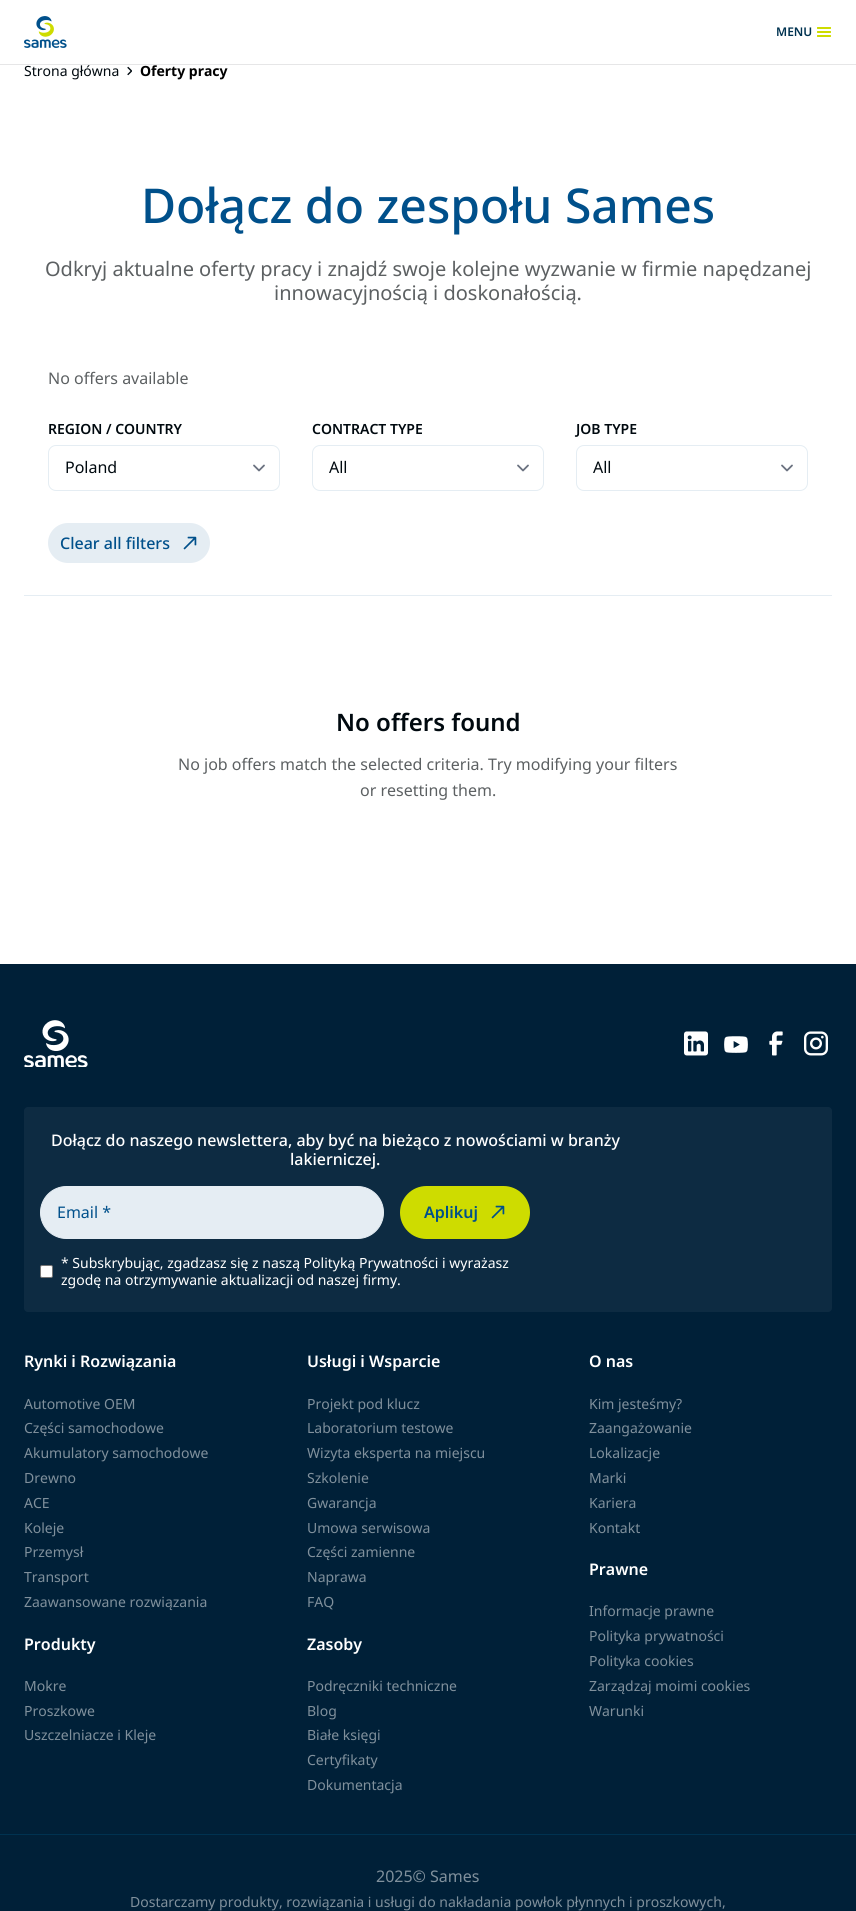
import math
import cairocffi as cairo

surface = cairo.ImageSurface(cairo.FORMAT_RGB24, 856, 1911)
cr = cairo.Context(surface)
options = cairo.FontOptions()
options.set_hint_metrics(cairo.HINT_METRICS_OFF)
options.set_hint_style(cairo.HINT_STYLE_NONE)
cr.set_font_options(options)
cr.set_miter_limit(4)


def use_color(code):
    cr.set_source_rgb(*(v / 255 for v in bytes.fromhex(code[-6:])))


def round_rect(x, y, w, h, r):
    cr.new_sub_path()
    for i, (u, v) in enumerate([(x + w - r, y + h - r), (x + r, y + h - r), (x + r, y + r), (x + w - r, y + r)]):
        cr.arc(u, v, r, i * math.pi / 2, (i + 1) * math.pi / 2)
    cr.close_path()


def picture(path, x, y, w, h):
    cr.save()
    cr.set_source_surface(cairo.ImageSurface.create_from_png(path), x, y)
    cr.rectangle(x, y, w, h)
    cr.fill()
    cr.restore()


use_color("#ffffff")
cr.paint()
use_color("#e6e6e7")
cr.rectangle(0, 64, 856, 1)
cr.fill()
picture("img1.png", 24, 16, 43, 32)
cr.select_font_face("Noto Sans SemiBold")
cr.set_font_size(12)
use_color("#003250")
cr.move_to(776, 36)
cr.show_text("MENU")
use_color("#cedc00")
round_rect(817, 27, 14, 2, 0.5)
cr.fill()
round_rect(817, 31, 14, 2, 0.5)
cr.fill()
round_rect(817, 35, 14, 2, 0.5)
cr.fill()
cr.select_font_face("Noto Sans")
cr.set_font_size(14)
use_color("#00090f")
cr.move_to(24, 76)
cr.show_text("Strona główna")
picture("img2.png", 127, 66, 5, 10)
cr.select_font_face("Noto Sans", cairo.FONT_SLANT_NORMAL, cairo.FONT_WEIGHT_BOLD)
use_color("#000000")
cr.move_to(140, 76)
cr.show_text("Oferty pracy")
cr.select_font_face("Noto Sans Medium")
cr.set_font_size(48)
use_color("#00508b")
cr.move_to(141, 223)
cr.show_text("Dołącz do zespołu Sames")
cr.select_font_face("Noto Sans")
cr.set_font_size(20)
use_color("#5c6062")
cr.move_to(45, 276)
cr.show_text("Odkryj aktualne oferty pracy i znajdź swoje kolejne wyzwanie w firmie napędzanej")
cr.move_to(274, 300)
cr.show_text("innowacyjnością i doskonałością.")
use_color("#e5edf3")
cr.rectangle(24, 595, 808, 1)
cr.fill()
cr.set_font_size(16)
use_color("#5c6062")
cr.move_to(48, 384)
cr.show_text("No offers available")
cr.select_font_face("Noto Sans SemiBold")
cr.set_font_size(14)
use_color("#00090f")
cr.move_to(48, 434)
cr.show_text("REGION / COUNTRY")
cr.new_path()
cr.move_to(254, 465.5)
cr.line_to(259, 470.5)
cr.line_to(264, 465.5)
use_color("#6b7280")
cr.set_line_width(1.8)
cr.set_line_cap(cairo.LINE_CAP_ROUND)
cr.set_line_join(cairo.LINE_JOIN_ROUND)
cr.stroke()
round_rect(48.5, 445.5, 231, 45, 7.5)
use_color("#e5edf3")
cr.set_line_width(1)
cr.set_line_cap(cairo.LINE_CAP_BUTT)
cr.set_line_join(cairo.LINE_JOIN_MITER)
cr.stroke()
cr.select_font_face("Noto Sans")
cr.set_font_size(16)
use_color("#00090f")
cr.move_to(65, 473)
cr.show_text("Poland")
cr.select_font_face("Noto Sans SemiBold")
cr.set_font_size(14)
cr.move_to(312, 434)
cr.show_text("CONTRACT TYPE")
cr.new_path()
cr.move_to(518, 465.5)
cr.line_to(523, 470.5)
cr.line_to(528, 465.5)
use_color("#6b7280")
cr.set_line_width(1.8)
cr.set_line_cap(cairo.LINE_CAP_ROUND)
cr.set_line_join(cairo.LINE_JOIN_ROUND)
cr.stroke()
round_rect(312.5, 445.5, 231, 45, 7.5)
use_color("#e5edf3")
cr.set_line_width(1)
cr.set_line_cap(cairo.LINE_CAP_BUTT)
cr.set_line_join(cairo.LINE_JOIN_MITER)
cr.stroke()
cr.select_font_face("Noto Sans")
cr.set_font_size(16)
use_color("#00090f")
cr.move_to(329, 473)
cr.show_text("All")
cr.select_font_face("Noto Sans SemiBold")
cr.set_font_size(14)
cr.move_to(576, 434)
cr.show_text("JOB TYPE")
cr.new_path()
cr.move_to(782, 465.5)
cr.line_to(787, 470.5)
cr.line_to(792, 465.5)
use_color("#6b7280")
cr.set_line_width(1.8)
cr.set_line_cap(cairo.LINE_CAP_ROUND)
cr.set_line_join(cairo.LINE_JOIN_ROUND)
cr.stroke()
round_rect(576.5, 445.5, 231, 45, 7.5)
use_color("#e5edf3")
cr.set_line_width(1)
cr.set_line_cap(cairo.LINE_CAP_BUTT)
cr.set_line_join(cairo.LINE_JOIN_MITER)
cr.stroke()
cr.select_font_face("Noto Sans")
cr.set_font_size(16)
use_color("#00090f")
cr.move_to(593, 473)
cr.show_text("All")
use_color("#e5edf3")
round_rect(48, 523, 162, 40, 20)
cr.fill()
cr.select_font_face("Noto Sans Medium")
use_color("#00508b")
cr.move_to(60, 549)
cr.show_text("Clear all filters")
picture("img3.png", 183, 536, 14, 14)
cr.select_font_face("Noto Sans SemiBold")
cr.set_font_size(24)
use_color("#00090f")
cr.move_to(336, 731)
cr.show_text("No offers found")
cr.select_font_face("Noto Sans")
cr.set_font_size(16)
use_color("#5c6062")
cr.move_to(178, 770)
cr.show_text("No job offers match the selected criteria. Try modifying your filters")
cr.move_to(360, 796)
cr.show_text("or resetting them.")
use_color("#002038")
cr.rectangle(0, 964, 856, 947)
cr.fill()
picture("img4.png", 24, 1020, 64, 47)
picture("img5.png", 684, 1031, 24, 25)
picture("img6.png", 724, 1036, 24, 17)
picture("img7.png", 769, 1031, 14, 25)
picture("img8.png", 804, 1031, 24, 25)
use_color("#0d2b42")
round_rect(24, 1107, 808, 205, 4)
cr.fill()
cr.select_font_face("Noto Sans Medium")
use_color("#ffffff")
cr.move_to(51, 1146)
cr.show_text("Dołącz do naszego newslettera, aby być na bieżąco z nowościami w branży")
cr.move_to(290, 1165)
cr.show_text("lakierniczej.")
use_color("#e5edf3")
round_rect(40.5, 1186.5, 343, 52, 26)
cr.fill_preserve()
cr.stroke()
cr.select_font_face("Noto Sans")
use_color("#00508b")
cr.move_to(57, 1218)
cr.show_text("Email *")
use_color("#cedc00")
round_rect(400, 1186, 130, 53, 26.5)
cr.fill()
cr.select_font_face("Noto Sans SemiBold")
use_color("#00508b")
cr.move_to(424, 1218)
cr.show_text("Aplikuj")
picture("img9.png", 491, 1205, 14, 14)
use_color("#ffffff")
round_rect(40.5, 1265.5, 12, 12, 1.5)
cr.fill_preserve()
use_color("#767676")
cr.stroke()
cr.select_font_face("Noto Sans")
cr.set_font_size(14)
use_color("#ffffff")
cr.move_to(61, 1268)
cr.show_text("* Subskrybując, zgadzasz się z naszą Polityką Prywatności i wyrażasz")
cr.move_to(61, 1285)
cr.show_text("zgodę na otrzymywanie aktualizacji od naszej firmy.")
cr.select_font_face("Noto Sans SemiBold")
cr.set_font_size(16)
cr.move_to(24, 1367)
cr.show_text("Rynki i Rozwiązania")
cr.select_font_face("Noto Sans")
cr.set_font_size(14)
use_color("#80909c")
cr.move_to(24, 1409)
cr.show_text("Automotive OEM")
cr.move_to(24, 1433)
cr.show_text("Części samochodowe")
cr.move_to(24, 1458)
cr.show_text("Akumulatory samochodowe")
cr.move_to(24, 1483)
cr.show_text("Drewno")
cr.move_to(24, 1508)
cr.show_text("ACE")
cr.move_to(24, 1533)
cr.show_text("Koleje")
cr.move_to(24, 1557)
cr.show_text("Przemysł")
cr.move_to(24, 1582)
cr.show_text("Transport")
cr.move_to(24, 1607)
cr.show_text("Zaawansowane rozwiązania")
cr.select_font_face("Noto Sans SemiBold")
cr.set_font_size(16)
use_color("#ffffff")
cr.move_to(24, 1650)
cr.show_text("Produkty")
cr.select_font_face("Noto Sans")
cr.set_font_size(14)
use_color("#80909c")
cr.move_to(24, 1691)
cr.show_text("Mokre")
cr.move_to(24, 1716)
cr.show_text("Proszkowe")
cr.move_to(24, 1740)
cr.show_text("Uszczelniacze i Kleje")
cr.select_font_face("Noto Sans SemiBold")
cr.set_font_size(16)
use_color("#ffffff")
cr.move_to(307, 1367)
cr.show_text("Usługi i Wsparcie")
cr.select_font_face("Noto Sans")
cr.set_font_size(14)
use_color("#80909c")
cr.move_to(307, 1409)
cr.show_text("Projekt pod klucz")
cr.move_to(307, 1433)
cr.show_text("Laboratorium testowe")
cr.move_to(307, 1458)
cr.show_text("Wizyta eksperta na miejscu")
cr.move_to(307, 1483)
cr.show_text("Szkolenie")
cr.move_to(307, 1508)
cr.show_text("Gwarancja")
cr.move_to(307, 1533)
cr.show_text("Umowa serwisowa")
cr.move_to(307, 1557)
cr.show_text("Części zamienne")
cr.move_to(307, 1582)
cr.show_text("Naprawa")
cr.move_to(307, 1607)
cr.show_text("FAQ")
cr.select_font_face("Noto Sans SemiBold")
cr.set_font_size(16)
use_color("#ffffff")
cr.move_to(307, 1650)
cr.show_text("Zasoby")
cr.select_font_face("Noto Sans")
cr.set_font_size(14)
use_color("#80909c")
cr.move_to(307, 1691)
cr.show_text("Podręczniki techniczne")
cr.move_to(307, 1716)
cr.show_text("Blog")
cr.move_to(307, 1740)
cr.show_text("Białe księgi")
cr.move_to(307, 1765)
cr.show_text("Certyfikaty")
cr.move_to(307, 1790)
cr.show_text("Dokumentacja")
cr.select_font_face("Noto Sans SemiBold")
cr.set_font_size(16)
use_color("#ffffff")
cr.move_to(589, 1367)
cr.show_text("O nas")
cr.select_font_face("Noto Sans")
cr.set_font_size(14)
use_color("#80909c")
cr.move_to(589, 1409)
cr.show_text("Kim jesteśmy?")
cr.move_to(589, 1433)
cr.show_text("Zaangażowanie")
cr.move_to(589, 1458)
cr.show_text("Lokalizacje")
cr.move_to(589, 1483)
cr.show_text("Marki")
cr.move_to(589, 1508)
cr.show_text("Kariera")
cr.move_to(589, 1533)
cr.show_text("Kontakt")
cr.select_font_face("Noto Sans SemiBold")
cr.set_font_size(16)
use_color("#ffffff")
cr.move_to(589, 1575)
cr.show_text("Prawne")
cr.select_font_face("Noto Sans")
cr.set_font_size(14)
use_color("#80909c")
cr.move_to(589, 1616)
cr.show_text("Informacje prawne")
cr.move_to(589, 1641)
cr.show_text("Polityka prywatności")
cr.move_to(589, 1666)
cr.show_text("Polityka cookies")
cr.move_to(589, 1691)
cr.show_text("Zarządzaj moimi cookies")
cr.move_to(589, 1716)
cr.show_text("Warunki")
use_color("#003250")
cr.rectangle(0, 1834, 856, 1)
cr.fill()
cr.set_font_size(16)
use_color("#80909c")
cr.move_to(376, 1882)
cr.show_text("2025© Sames")
cr.set_font_size(14)
cr.move_to(130, 1907)
cr.show_text("Dostarczamy produkty, rozwiązania i usługi do nakładania powłok płynnych i proszkowych,")
surface.write_to_png("result.png")
